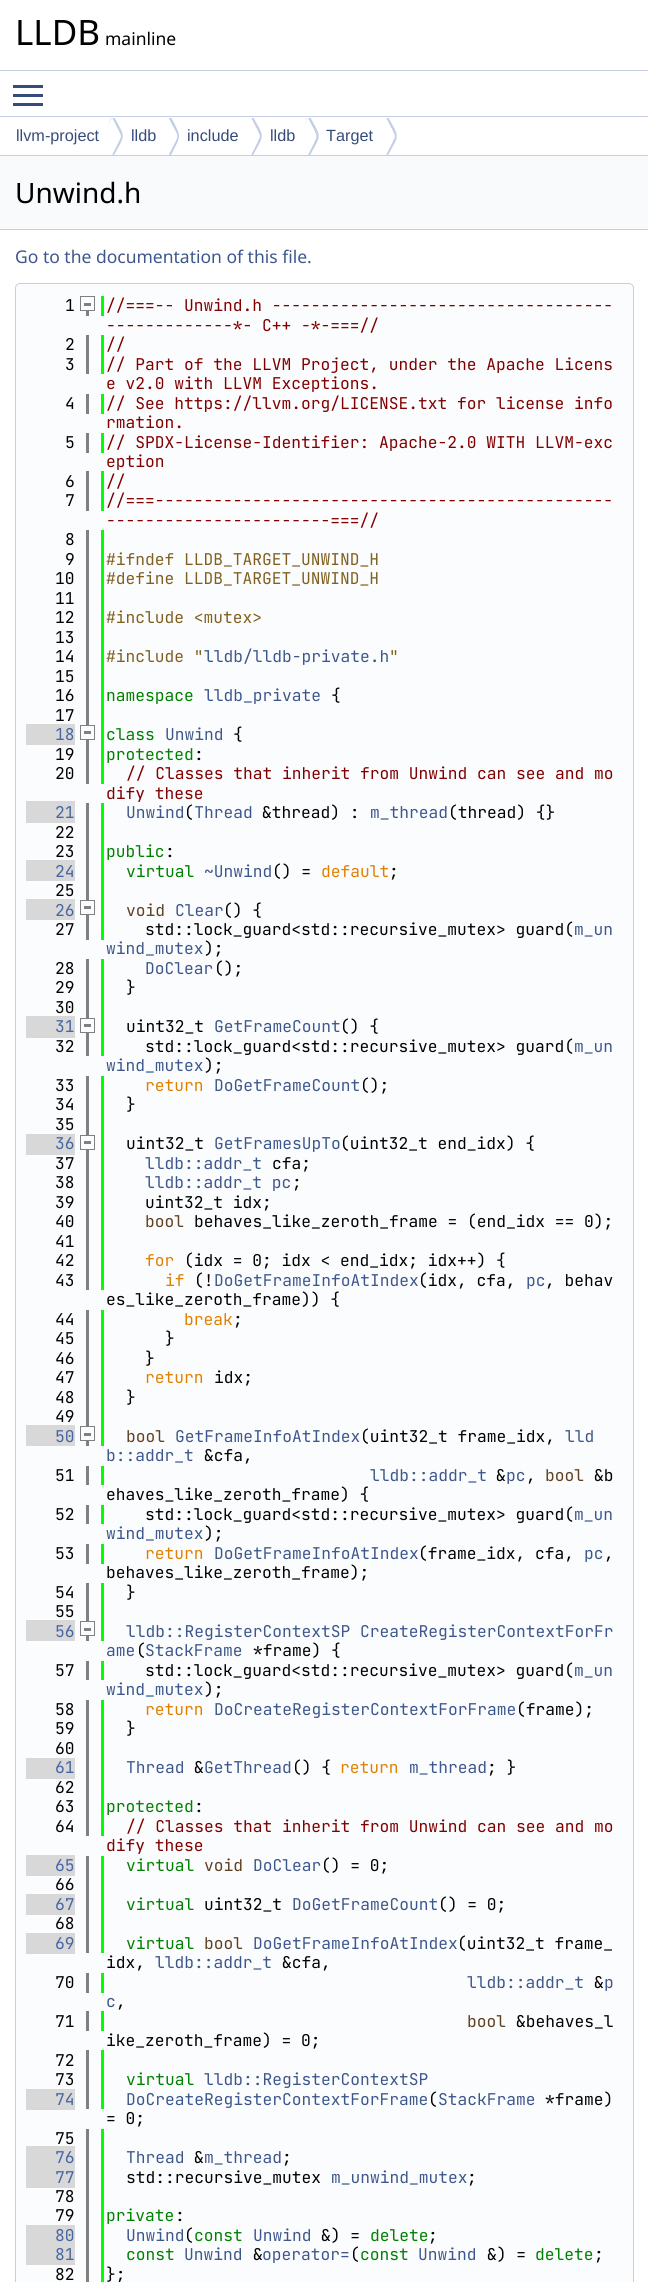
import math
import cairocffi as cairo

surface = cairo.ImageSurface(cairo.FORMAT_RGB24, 648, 2282)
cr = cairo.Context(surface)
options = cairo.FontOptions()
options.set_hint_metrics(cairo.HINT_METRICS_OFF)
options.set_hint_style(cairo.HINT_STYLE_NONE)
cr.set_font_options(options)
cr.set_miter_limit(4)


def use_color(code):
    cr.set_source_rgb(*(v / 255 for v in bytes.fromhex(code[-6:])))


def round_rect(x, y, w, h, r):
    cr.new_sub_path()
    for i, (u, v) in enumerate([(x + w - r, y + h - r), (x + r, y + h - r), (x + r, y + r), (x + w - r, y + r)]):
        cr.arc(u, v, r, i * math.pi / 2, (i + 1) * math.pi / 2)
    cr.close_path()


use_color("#ffffff")
cr.paint()
use_color("#c4cfe5")
cr.rectangle(0, 70, 648, 1)
cr.fill()
cr.select_font_face("Noto Sans")
cr.set_font_size(35)
use_color("#000000")
cr.move_to(15, 45)
cr.show_text("LLDB")
cr.set_font_size(17.5)
cr.move_to(105, 45)
cr.show_text("mainline")
use_color("#364d7c")
cr.rectangle(13, 94, 30, 3)
cr.fill()
cr.rectangle(13, 85, 30, 3)
cr.fill()
cr.rectangle(13, 103, 30, 3)
cr.fill()
use_color("#c4cfe5")
cr.rectangle(0, 116, 648, 1)
cr.fill()
cr.rectangle(0, 155, 648, 1)
cr.fill()
cr.select_font_face("Liberation Sans")
cr.set_font_size(16.25)
use_color("#354c7b")
cr.move_to(16, 141)
cr.show_text("llvm-project")
cr.save()
cr.rectangle(0, 118, 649, 37)
cr.clip()
use_color("#c4cfe5")
cr.new_path()
cr.move_to(113, 115)
cr.curve_to(109, 119, 108, 129, 108, 135)
cr.curve_to(108, 129, 109, 122, 112, 118)
cr.curve_to(123, 140, 123, 132, 112, 155)
cr.line_to(113, 157)
cr.curve_to(126, 133, 126, 139, 113, 115)
cr.close_path()
cr.fill()
cr.restore()
use_color("#ffffff")
cr.new_path()
cr.move_to(112, 117.5)
cr.line_to(120.5, 134.5)
cr.curve_to(121, 135.5, 121, 137, 120.5, 138)
cr.line_to(112, 155)
cr.curve_to(106.5, 144.5, 106.5, 128, 112, 117.5)
cr.close_path()
cr.fill()
use_color("#354c7b")
cr.move_to(131, 141)
cr.show_text("lldb")
cr.save()
cr.rectangle(0, 118, 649, 37)
cr.clip()
use_color("#c4cfe5")
cr.new_path()
cr.move_to(170, 115)
cr.line_to(168, 118)
cr.curve_to(180, 140, 180, 132, 169, 154)
cr.line_to(170, 157)
cr.curve_to(182, 133, 182, 139, 170, 115)
cr.close_path()
cr.fill()
cr.restore()
use_color("#ffffff")
cr.new_path()
cr.move_to(168.5, 117.5)
cr.line_to(177, 134.5)
cr.curve_to(177.5, 135.5, 177.5, 137, 177, 138)
cr.line_to(168.5, 155)
cr.curve_to(163, 144.5, 163, 128, 168.5, 117.5)
cr.close_path()
cr.fill()
use_color("#354c7b")
cr.move_to(187, 141)
cr.show_text("include")
cr.save()
cr.rectangle(0, 118, 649, 37)
cr.clip()
use_color("#c4cfe5")
cr.new_path()
cr.move_to(252, 115)
cr.line_to(251, 118)
cr.curve_to(262, 140, 262, 132, 251, 155)
cr.line_to(250, 154)
cr.line_to(252, 157)
cr.curve_to(265, 133, 265, 139, 252, 115)
cr.close_path()
cr.fill()
cr.restore()
use_color("#ffffff")
cr.new_path()
cr.move_to(251, 117.5)
cr.line_to(259.5, 134.5)
cr.curve_to(260, 135.5, 260, 137, 259.5, 138)
cr.line_to(251, 155)
cr.curve_to(246, 144.5, 246, 128, 251, 117.5)
cr.close_path()
cr.fill()
use_color("#354c7b")
cr.move_to(270, 141)
cr.show_text("lldb")
cr.save()
cr.rectangle(0, 118, 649, 37)
cr.clip()
use_color("#c4cfe5")
cr.new_path()
cr.move_to(309, 115)
cr.curve_to(306, 118, 305, 124, 304, 128)
cr.curve_to(305, 124, 306, 121, 308, 118)
cr.curve_to(319, 140, 319, 132, 308, 155)
cr.line_to(309, 157)
cr.curve_to(322, 133, 322, 139, 309, 115)
cr.close_path()
cr.fill()
cr.restore()
use_color("#ffffff")
cr.new_path()
cr.move_to(307.5, 117.5)
cr.line_to(316, 134.5)
cr.curve_to(316.5, 135.5, 316.5, 137, 316, 138)
cr.line_to(307.5, 155)
cr.curve_to(302.5, 144.5, 302.5, 128, 307.5, 117.5)
cr.close_path()
cr.fill()
use_color("#354c7b")
cr.move_to(326, 141)
cr.show_text("Target")
cr.save()
cr.rectangle(0, 118, 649, 37)
cr.clip()
use_color("#c4cfe5")
cr.new_path()
cr.move_to(387, 115)
cr.line_to(386, 118)
cr.curve_to(397, 140, 397, 132, 386, 155)
cr.line_to(387, 157)
cr.curve_to(400, 133, 400, 139, 387, 115)
cr.close_path()
cr.fill()
cr.restore()
use_color("#ffffff")
cr.new_path()
cr.move_to(386, 117.5)
cr.line_to(394.5, 134.5)
cr.curve_to(395, 135.5, 395, 137, 394.5, 138)
cr.line_to(386, 155)
cr.curve_to(381, 144.5, 381, 128, 386, 117.5)
cr.close_path()
cr.fill()
use_color("#f9fafc")
cr.rectangle(0, 156, 648, 73)
cr.fill()
use_color("#c4cfe5")
cr.rectangle(0, 229, 648, 1)
cr.fill()
cr.select_font_face("Noto Sans")
cr.set_font_size(28)
use_color("#000000")
cr.move_to(15, 203)
cr.show_text("Unwind.h")
cr.set_font_size(17.5)
use_color("#3d578c")
cr.move_to(15, 263)
cr.show_text("Go to the documentation of this file.")
use_color("#fbfcfd")
round_rect(15.5, 283.5, 618, 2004, 4.5)
cr.fill_preserve()
use_color("#c4cfe5")
cr.set_line_width(1)
cr.stroke()
use_color("#808080")
cr.rectangle(86, 311, 3, 5)
cr.fill()
use_color("#00ff00")
cr.rectangle(101, 296, 3, 20)
cr.fill()
cr.select_font_face("JetBrains Mono")
cr.set_font_size(16.25)
use_color("#000000")
cr.move_to(65, 311)
cr.show_text("1")
cr.rectangle(80.5, 296.5, 14, 14)
use_color("#808080")
cr.stroke()
cr.rectangle(84, 303, 7, 3)
cr.fill()
use_color("#800000")
cr.move_to(106, 311)
cr.show_text("//===-- Unwind.h -----------------------------------")
cr.move_to(106, 331)
cr.show_text("-------------*- C++ -*-===//")
use_color("#808080")
cr.rectangle(86, 335, 3, 39)
cr.fill()
use_color("#00ff00")
cr.rectangle(101, 335, 3, 39)
cr.fill()
use_color("#000000")
cr.move_to(65, 350)
cr.show_text("2")
use_color("#800000")
cr.move_to(106, 350)
cr.show_text("//")
use_color("#000000")
cr.move_to(65, 370)
cr.show_text("3")
use_color("#800000")
cr.move_to(106, 370)
cr.show_text("// Part of the LLVM Project, under the Apache Licens")
cr.move_to(106, 389)
cr.show_text("e v2.0 with LLVM Exceptions.")
use_color("#808080")
cr.rectangle(86, 394, 3, 20)
cr.fill()
use_color("#00ff00")
cr.rectangle(101, 394, 3, 20)
cr.fill()
use_color("#000000")
cr.move_to(65, 409)
cr.show_text("4")
use_color("#800000")
cr.move_to(106, 409)
cr.show_text("// See https://llvm.org/LICENSE.txt for license info")
cr.move_to(106, 428)
cr.show_text("rmation.")
use_color("#808080")
cr.rectangle(86, 433, 3, 20)
cr.fill()
use_color("#00ff00")
cr.rectangle(101, 433, 3, 20)
cr.fill()
use_color("#000000")
cr.move_to(65, 448)
cr.show_text("5")
use_color("#800000")
cr.move_to(106, 448)
cr.show_text("// SPDX-License-Identifier: Apache-2.0 WITH LLVM-exc")
cr.move_to(106, 467)
cr.show_text("eption")
use_color("#808080")
cr.rectangle(86, 471, 3, 40)
cr.fill()
use_color("#00ff00")
cr.rectangle(101, 471, 3, 40)
cr.fill()
use_color("#000000")
cr.move_to(65, 487)
cr.show_text("6")
use_color("#800000")
cr.move_to(106, 487)
cr.show_text("//")
use_color("#000000")
cr.move_to(65, 506)
cr.show_text("7")
use_color("#800000")
cr.move_to(106, 506)
cr.show_text("//===-----------------------------------------------")
cr.move_to(106, 526)
cr.show_text("-----------------------===//")
use_color("#808080")
cr.rectangle(86, 530, 3, 195)
cr.fill()
use_color("#00ff00")
cr.rectangle(101, 530, 3, 254)
cr.fill()
use_color("#000000")
cr.move_to(65, 545)
cr.show_text("8")
cr.move_to(65, 565)
cr.show_text("9")
use_color("#806020")
cr.move_to(106, 565)
cr.show_text("#ifndef LLDB_TARGET_UNWIND_H")
use_color("#000000")
cr.move_to(55, 584)
cr.show_text("10")
use_color("#806020")
cr.move_to(106, 584)
cr.show_text("#define LLDB_TARGET_UNWIND_H")
use_color("#000000")
cr.move_to(55, 604)
cr.show_text("11")
cr.move_to(55, 623)
cr.show_text("12")
use_color("#806020")
cr.move_to(106, 623)
cr.show_text("#include <mutex>")
use_color("#000000")
cr.move_to(55, 643)
cr.show_text("13")
cr.move_to(55, 662)
cr.show_text("14")
use_color("#806020")
cr.move_to(106, 662)
cr.show_text("#include \"")
use_color("#3d578c")
cr.move_to(204, 662)
cr.show_text("lldb/lldb-private.h")
use_color("#806020")
cr.move_to(389, 662)
cr.show_text("\"")
use_color("#000000")
cr.move_to(55, 682)
cr.show_text("15")
cr.move_to(55, 701)
cr.show_text("16")
use_color("#008000")
cr.move_to(106, 701)
cr.show_text("namespace")
use_color("#3d578c")
cr.move_to(204, 701)
cr.show_text("lldb_private")
use_color("#000000")
cr.move_to(331, 701)
cr.show_text("{")
cr.move_to(55, 721)
cr.show_text("17")
use_color("#808080")
cr.rectangle(86, 740, 3, 44)
cr.fill()
use_color("#d8d8d8")
cr.rectangle(26, 724, 49, 21)
cr.fill()
use_color("#4665a2")
cr.move_to(55, 740)
cr.show_text("18")
cr.rectangle(80.5, 725.5, 14, 14)
use_color("#808080")
cr.stroke()
cr.rectangle(84, 731, 7, 3)
cr.fill()
use_color("#008000")
cr.move_to(106, 740)
cr.show_text("class")
use_color("#3d578c")
cr.move_to(165, 740)
cr.show_text("Unwind")
use_color("#000000")
cr.move_to(233, 740)
cr.show_text("{")
cr.move_to(55, 760)
cr.show_text("19")
use_color("#008000")
cr.move_to(106, 760)
cr.show_text("protected")
use_color("#000000")
cr.move_to(194, 760)
cr.show_text(":")
cr.move_to(55, 779)
cr.show_text("20")
use_color("#800000")
cr.move_to(126, 779)
cr.show_text("// Classes that inherit from Unwind can see and mo")
cr.move_to(106, 799)
cr.show_text("dify these")
use_color("#3d578c")
cr.move_to(126, 818)
cr.show_text("Unwind Thread")
use_color("#000000")
cr.move_to(184, 818)
cr.show_text("(")
cr.move_to(262, 818)
cr.show_text("&thread) :")
cr.move_to(448, 818)
cr.show_text("(thread) {}")
use_color("#808080")
cr.rectangle(86, 803, 3, 97)
cr.fill()
use_color("#00ff00")
cr.rectangle(101, 803, 3, 137)
cr.fill()
use_color("#d8d8d8")
cr.rectangle(26, 801, 49, 22)
cr.fill()
use_color("#4665a2")
cr.move_to(55, 818)
cr.show_text("21")
use_color("#3d578c")
cr.move_to(370, 818)
cr.show_text("m_thread")
use_color("#000000")
cr.move_to(55, 838)
cr.show_text("22")
cr.move_to(55, 857)
cr.show_text("23")
use_color("#008000")
cr.move_to(106, 857)
cr.show_text("public")
use_color("#000000")
cr.move_to(165, 857)
cr.show_text(":")
use_color("#d8d8d8")
cr.rectangle(26, 860, 49, 21)
cr.fill()
use_color("#4665a2")
cr.move_to(55, 877)
cr.show_text("24")
use_color("#008000")
cr.move_to(126, 877)
cr.show_text("virtual")
use_color("#3d578c")
cr.move_to(204, 877)
cr.show_text("~Unwind")
use_color("#000000")
cr.move_to(272, 877)
cr.show_text("() =")
use_color("#e08000")
cr.move_to(321, 877)
cr.show_text("default")
use_color("#000000")
cr.move_to(389, 877)
cr.show_text(";")
cr.move_to(55, 896)
cr.show_text("25")
use_color("#808080")
cr.rectangle(86, 915, 3, 25)
cr.fill()
use_color("#d8d8d8")
cr.rectangle(26, 899, 49, 21)
cr.fill()
use_color("#4665a2")
cr.move_to(55, 916)
cr.show_text("26")
cr.rectangle(80.5, 900.5, 14, 14)
use_color("#808080")
cr.stroke()
cr.rectangle(84, 906, 7, 3)
cr.fill()
use_color("#604020")
cr.move_to(126, 916)
cr.show_text("void")
use_color("#3d578c")
cr.move_to(175, 916)
cr.show_text("Clear")
use_color("#000000")
cr.move_to(223, 916)
cr.show_text("() {")
cr.move_to(55, 935)
cr.show_text("27")
cr.move_to(145, 935)
cr.show_text("std::lock_guard<std::recursive_mutex> guard(")
use_color("#3d578c")
cr.move_to(574, 935)
cr.show_text("m_un")
cr.move_to(106, 954)
cr.show_text("wind_mutex")
use_color("#000000")
cr.move_to(204, 954)
cr.show_text(");")
use_color("#808080")
cr.rectangle(86, 959, 3, 59)
cr.fill()
use_color("#00ff00")
cr.rectangle(101, 959, 3, 97)
cr.fill()
use_color("#000000")
cr.move_to(55, 974)
cr.show_text("28")
use_color("#3d578c")
cr.move_to(145, 974)
cr.show_text("DoClear")
use_color("#000000")
cr.move_to(214, 974)
cr.show_text("();")
cr.move_to(55, 993)
cr.show_text("29")
cr.move_to(126, 993)
cr.show_text("}")
cr.move_to(55, 1013)
cr.show_text("30")
use_color("#808080")
cr.rectangle(86, 1033, 3, 23)
cr.fill()
use_color("#d8d8d8")
cr.rectangle(26, 1016, 49, 22)
cr.fill()
use_color("#4665a2")
cr.move_to(55, 1032)
cr.show_text("31")
cr.rectangle(80.5, 1018.5, 14, 14)
use_color("#808080")
cr.stroke()
cr.rectangle(84, 1024, 7, 3)
cr.fill()
use_color("#000000")
cr.move_to(126, 1032)
cr.show_text("uint32_t")
use_color("#3d578c")
cr.move_to(214, 1032)
cr.show_text("GetFrameCount")
use_color("#000000")
cr.move_to(340, 1032)
cr.show_text("() {")
cr.move_to(55, 1052)
cr.show_text("32")
cr.move_to(145, 1052)
cr.show_text("std::lock_guard<std::recursive_mutex> guard(")
use_color("#3d578c")
cr.move_to(574, 1052)
cr.show_text("m_un")
cr.move_to(106, 1071)
cr.show_text("wind_mutex")
use_color("#000000")
cr.move_to(204, 1071)
cr.show_text(");")
use_color("#808080")
cr.rectangle(86, 1076, 3, 59)
cr.fill()
use_color("#00ff00")
cr.rectangle(101, 1076, 3, 214)
cr.fill()
use_color("#000000")
cr.move_to(55, 1091)
cr.show_text("33")
use_color("#e08000")
cr.move_to(145, 1091)
cr.show_text("return")
use_color("#3d578c")
cr.move_to(214, 1091)
cr.show_text("DoGetFrameCount")
use_color("#000000")
cr.move_to(360, 1091)
cr.show_text("();")
cr.move_to(55, 1110)
cr.show_text("34")
cr.move_to(126, 1110)
cr.show_text("}")
cr.move_to(55, 1130)
cr.show_text("35")
use_color("#808080")
cr.rectangle(86, 1150, 3, 140)
cr.fill()
use_color("#d8d8d8")
cr.rectangle(26, 1134, 49, 21)
cr.fill()
use_color("#4665a2")
cr.move_to(55, 1149)
cr.show_text("36")
cr.rectangle(80.5, 1135.5, 14, 14)
use_color("#808080")
cr.stroke()
cr.rectangle(84, 1141, 7, 3)
cr.fill()
use_color("#000000")
cr.move_to(126, 1149)
cr.show_text("uint32_t")
use_color("#3d578c")
cr.move_to(214, 1149)
cr.show_text("GetFramesUpTo")
use_color("#000000")
cr.move_to(340, 1149)
cr.show_text("(uint32_t end_idx) {")
cr.move_to(55, 1169)
cr.show_text("37")
use_color("#3d578c")
cr.move_to(145, 1169)
cr.show_text("lldb::addr_t")
use_color("#000000")
cr.move_to(272, 1169)
cr.show_text("cfa;")
cr.move_to(55, 1188)
cr.show_text("38")
use_color("#3d578c")
cr.move_to(145, 1188)
cr.show_text("lldb::addr_t pc")
use_color("#000000")
cr.move_to(292, 1188)
cr.show_text(";")
cr.move_to(55, 1208)
cr.show_text("39")
cr.move_to(145, 1208)
cr.show_text("uint32_t idx;")
cr.move_to(55, 1227)
cr.show_text("40")
use_color("#604020")
cr.move_to(145, 1227)
cr.show_text("bool")
use_color("#000000")
cr.move_to(194, 1227)
cr.show_text("behaves_like_zeroth_frame = (end_idx == 0);")
cr.move_to(55, 1247)
cr.show_text("41")
cr.move_to(55, 1266)
cr.show_text("42")
use_color("#e08000")
cr.move_to(145, 1266)
cr.show_text("for")
use_color("#000000")
cr.move_to(184, 1266)
cr.show_text("(idx = 0; idx < end_idx; idx++) {")
cr.move_to(55, 1286)
cr.show_text("43")
use_color("#e08000")
cr.move_to(165, 1286)
cr.show_text("if")
use_color("#000000")
cr.move_to(194, 1286)
cr.show_text("(!")
use_color("#3d578c")
cr.move_to(214, 1286)
cr.show_text("DoGetFrameInfoAtIndex")
use_color("#000000")
cr.move_to(418, 1286)
cr.show_text("(idx, cfa,")
use_color("#3d578c")
cr.move_to(526, 1286)
cr.show_text("pc")
use_color("#000000")
cr.move_to(545, 1286)
cr.show_text(", behav")
cr.move_to(106, 1305)
cr.show_text("es_like_zeroth_frame)) {")
use_color("#808080")
cr.rectangle(86, 1310, 3, 116)
cr.fill()
use_color("#00ff00")
cr.rectangle(101, 1310, 3, 136)
cr.fill()
use_color("#000000")
cr.move_to(55, 1325)
cr.show_text("44")
use_color("#e08000")
cr.move_to(184, 1325)
cr.show_text("break")
use_color("#000000")
cr.move_to(233, 1325)
cr.show_text(";")
cr.move_to(55, 1344)
cr.show_text("45")
cr.move_to(165, 1344)
cr.show_text("}")
cr.move_to(55, 1364)
cr.show_text("46")
cr.move_to(145, 1364)
cr.show_text("}")
cr.move_to(55, 1383)
cr.show_text("47")
use_color("#e08000")
cr.move_to(145, 1383)
cr.show_text("return")
use_color("#000000")
cr.move_to(214, 1383)
cr.show_text("idx;")
cr.move_to(55, 1403)
cr.show_text("48")
cr.move_to(126, 1403)
cr.show_text("}")
cr.move_to(55, 1422)
cr.show_text("49")
use_color("#808080")
cr.rectangle(86, 1441, 3, 5)
cr.fill()
use_color("#d8d8d8")
cr.rectangle(26, 1425, 49, 21)
cr.fill()
use_color("#4665a2")
cr.move_to(55, 1442)
cr.show_text("50")
cr.rectangle(80.5, 1426.5, 14, 14)
use_color("#808080")
cr.stroke()
cr.rectangle(84, 1433, 7, 3)
cr.fill()
use_color("#604020")
cr.move_to(126, 1442)
cr.show_text("bool")
use_color("#3d578c")
cr.move_to(175, 1442)
cr.show_text("GetFrameInfoAtIndex")
use_color("#000000")
cr.move_to(360, 1442)
cr.show_text("(uint32_t frame_idx,")
use_color("#3d578c")
cr.move_to(565, 1442)
cr.show_text("lld")
cr.move_to(106, 1461)
cr.show_text("b::addr_t")
use_color("#000000")
cr.move_to(204, 1461)
cr.show_text("&cfa,")
use_color("#808080")
cr.rectangle(86, 1466, 3, 19)
cr.fill()
use_color("#00ff00")
cr.rectangle(101, 1466, 3, 19)
cr.fill()
use_color("#000000")
cr.move_to(55, 1481)
cr.show_text("51")
use_color("#3d578c")
cr.move_to(370, 1481)
cr.show_text("lldb::addr_t")
use_color("#000000")
cr.move_to(496, 1481)
cr.show_text("&")
use_color("#3d578c")
cr.move_to(506, 1481)
cr.show_text("pc")
use_color("#000000")
cr.move_to(526, 1481)
cr.show_text(",")
use_color("#604020")
cr.move_to(545, 1481)
cr.show_text("bool")
use_color("#000000")
cr.move_to(594, 1481)
cr.show_text("&b")
cr.move_to(106, 1500)
cr.show_text("ehaves_like_zeroth_frame) {")
use_color("#808080")
cr.rectangle(86, 1505, 3, 19)
cr.fill()
use_color("#00ff00")
cr.rectangle(101, 1505, 3, 19)
cr.fill()
use_color("#000000")
cr.move_to(55, 1520)
cr.show_text("52")
cr.move_to(145, 1520)
cr.show_text("std::lock_guard<std::recursive_mutex> guard(")
use_color("#3d578c")
cr.move_to(574, 1520)
cr.show_text("m_un")
cr.move_to(106, 1539)
cr.show_text("wind_mutex")
use_color("#000000")
cr.move_to(204, 1539)
cr.show_text(");")
use_color("#808080")
cr.rectangle(86, 1544, 3, 20)
cr.fill()
use_color("#00ff00")
cr.rectangle(101, 1544, 3, 20)
cr.fill()
use_color("#000000")
cr.move_to(55, 1559)
cr.show_text("53")
use_color("#e08000")
cr.move_to(145, 1559)
cr.show_text("return")
use_color("#3d578c")
cr.move_to(214, 1559)
cr.show_text("DoGetFrameInfoAtIndex")
use_color("#000000")
cr.move_to(418, 1559)
cr.show_text("(frame_idx, cfa,")
use_color("#3d578c")
cr.move_to(584, 1559)
cr.show_text("pc")
use_color("#000000")
cr.move_to(604, 1559)
cr.show_text(",")
cr.move_to(106, 1578)
cr.show_text("behaves_like_zeroth_frame);")
use_color("#808080")
cr.rectangle(86, 1583, 3, 38)
cr.fill()
use_color("#00ff00")
cr.rectangle(101, 1583, 3, 58)
cr.fill()
use_color("#000000")
cr.move_to(55, 1598)
cr.show_text("54")
cr.move_to(126, 1598)
cr.show_text("}")
cr.move_to(55, 1617)
cr.show_text("55")
use_color("#808080")
cr.rectangle(86, 1636, 3, 5)
cr.fill()
use_color("#d8d8d8")
cr.rectangle(26, 1620, 49, 21)
cr.fill()
use_color("#4665a2")
cr.move_to(55, 1637)
cr.show_text("56")
cr.rectangle(80.5, 1621.5, 14, 14)
use_color("#808080")
cr.stroke()
cr.rectangle(84, 1628, 7, 3)
cr.fill()
use_color("#3d578c")
cr.move_to(126, 1637)
cr.show_text("lldb::RegisterContextSP CreateRegisterContextForFr")
cr.move_to(106, 1656)
cr.show_text("ame StackFrame")
use_color("#000000")
cr.move_to(136, 1656)
cr.show_text("(")
cr.move_to(253, 1656)
cr.show_text("*frame) {")
use_color("#808080")
cr.rectangle(86, 1661, 3, 19)
cr.fill()
use_color("#00ff00")
cr.rectangle(101, 1661, 3, 19)
cr.fill()
use_color("#000000")
cr.move_to(55, 1676)
cr.show_text("57")
cr.move_to(145, 1676)
cr.show_text("std::lock_guard<std::recursive_mutex> guard(")
use_color("#3d578c")
cr.move_to(574, 1676)
cr.show_text("m_un")
cr.move_to(106, 1695)
cr.show_text("wind_mutex")
use_color("#000000")
cr.move_to(204, 1695)
cr.show_text(");")
use_color("#808080")
cr.rectangle(86, 1700, 3, 136)
cr.fill()
use_color("#00ff00")
cr.rectangle(101, 1700, 3, 136)
cr.fill()
use_color("#000000")
cr.move_to(55, 1715)
cr.show_text("58")
use_color("#e08000")
cr.move_to(145, 1715)
cr.show_text("return")
use_color("#3d578c")
cr.move_to(214, 1715)
cr.show_text("DoCreateRegisterContextForFrame")
use_color("#000000")
cr.move_to(516, 1715)
cr.show_text("(frame);")
cr.move_to(55, 1734)
cr.show_text("59")
cr.move_to(126, 1734)
cr.show_text("}")
cr.move_to(55, 1754)
cr.show_text("60")
use_color("#d8d8d8")
cr.rectangle(26, 1758, 49, 21)
cr.fill()
use_color("#4665a2")
cr.move_to(55, 1773)
cr.show_text("61")
use_color("#3d578c")
cr.move_to(126, 1773)
cr.show_text("Thread")
use_color("#000000")
cr.move_to(194, 1773)
cr.show_text("&")
use_color("#3d578c")
cr.move_to(204, 1773)
cr.show_text("GetThread")
use_color("#000000")
cr.move_to(292, 1773)
cr.show_text("() {")
use_color("#e08000")
cr.move_to(340, 1773)
cr.show_text("return")
use_color("#3d578c")
cr.move_to(409, 1773)
cr.show_text("m_thread")
use_color("#000000")
cr.move_to(487, 1773)
cr.show_text("; }")
cr.move_to(55, 1793)
cr.show_text("62")
cr.move_to(55, 1812)
cr.show_text("63")
use_color("#008000")
cr.move_to(106, 1812)
cr.show_text("protected")
use_color("#000000")
cr.move_to(194, 1812)
cr.show_text(":")
cr.move_to(55, 1832)
cr.show_text("64")
use_color("#800000")
cr.move_to(126, 1832)
cr.show_text("// Classes that inherit from Unwind can see and mo")
cr.move_to(106, 1851)
cr.show_text("dify these")
use_color("#808080")
cr.rectangle(86, 1856, 3, 97)
cr.fill()
use_color("#00ff00")
cr.rectangle(101, 1856, 3, 97)
cr.fill()
use_color("#d8d8d8")
cr.rectangle(26, 1855, 49, 21)
cr.fill()
use_color("#4665a2")
cr.move_to(55, 1871)
cr.show_text("65")
use_color("#008000")
cr.move_to(126, 1871)
cr.show_text("virtual")
use_color("#604020")
cr.move_to(204, 1871)
cr.show_text("void")
use_color("#3d578c")
cr.move_to(253, 1871)
cr.show_text("DoClear")
use_color("#000000")
cr.move_to(321, 1871)
cr.show_text("() = 0;")
cr.move_to(55, 1890)
cr.show_text("66")
use_color("#d8d8d8")
cr.rectangle(26, 1894, 49, 21)
cr.fill()
use_color("#4665a2")
cr.move_to(55, 1910)
cr.show_text("67")
use_color("#008000")
cr.move_to(126, 1910)
cr.show_text("virtual")
use_color("#000000")
cr.move_to(204, 1910)
cr.show_text("uint32_t")
use_color("#3d578c")
cr.move_to(292, 1910)
cr.show_text("DoGetFrameCount")
use_color("#000000")
cr.move_to(438, 1910)
cr.show_text("() = 0;")
cr.move_to(55, 1929)
cr.show_text("68")
use_color("#d8d8d8")
cr.rectangle(26, 1933, 49, 21)
cr.fill()
use_color("#4665a2")
cr.move_to(55, 1949)
cr.show_text("69")
use_color("#008000")
cr.move_to(126, 1949)
cr.show_text("virtual")
use_color("#604020")
cr.move_to(204, 1949)
cr.show_text("bool")
use_color("#3d578c")
cr.move_to(253, 1949)
cr.show_text("DoGetFrameInfoAtIndex")
use_color("#000000")
cr.move_to(457, 1949)
cr.show_text("(uint32_t frame_")
cr.move_to(106, 1968)
cr.show_text("idx,")
use_color("#3d578c")
cr.move_to(155, 1968)
cr.show_text("lldb::addr_t")
use_color("#000000")
cr.move_to(282, 1968)
cr.show_text("&cfa,")
use_color("#808080")
cr.rectangle(86, 1973, 3, 20)
cr.fill()
use_color("#00ff00")
cr.rectangle(101, 1973, 3, 20)
cr.fill()
use_color("#000000")
cr.move_to(55, 1988)
cr.show_text("70")
use_color("#3d578c")
cr.move_to(467, 1988)
cr.show_text("lldb::addr_t")
use_color("#000000")
cr.move_to(594, 1988)
cr.show_text("&")
use_color("#3d578c")
cr.move_to(604, 1988)
cr.show_text("p")
cr.move_to(106, 2007)
cr.show_text("c")
use_color("#000000")
cr.move_to(116, 2007)
cr.show_text(",")
use_color("#808080")
cr.rectangle(86, 2011, 3, 20)
cr.fill()
use_color("#00ff00")
cr.rectangle(101, 2011, 3, 20)
cr.fill()
use_color("#000000")
cr.move_to(55, 2027)
cr.show_text("71")
use_color("#604020")
cr.move_to(467, 2027)
cr.show_text("bool")
use_color("#000000")
cr.move_to(516, 2027)
cr.show_text("&behaves_l")
cr.move_to(106, 2046)
cr.show_text("ike_zeroth_frame) = 0;")
use_color("#808080")
cr.rectangle(86, 2050, 3, 59)
cr.fill()
use_color("#00ff00")
cr.rectangle(101, 2050, 3, 59)
cr.fill()
use_color("#000000")
cr.move_to(55, 2066)
cr.show_text("72")
cr.move_to(55, 2085)
cr.show_text("73")
use_color("#008000")
cr.move_to(126, 2085)
cr.show_text("virtual")
use_color("#3d578c")
cr.move_to(204, 2085)
cr.show_text("lldb::RegisterContextSP")
cr.move_to(126, 2105)
cr.show_text("DoCreateRegisterContextForFrame StackFrame")
use_color("#000000")
cr.move_to(428, 2105)
cr.show_text("(")
cr.move_to(545, 2105)
cr.show_text("*frame)")
use_color("#d8d8d8")
cr.rectangle(26, 2089, 49, 21)
cr.fill()
use_color("#4665a2")
cr.move_to(55, 2105)
cr.show_text("74")
use_color("#000000")
cr.move_to(106, 2124)
cr.show_text("= 0;")
use_color("#808080")
cr.rectangle(86, 2129, 3, 153)
cr.fill()
use_color("#00ff00")
cr.rectangle(101, 2129, 3, 153)
cr.fill()
use_color("#000000")
cr.move_to(55, 2144)
cr.show_text("75")
use_color("#d8d8d8")
cr.rectangle(26, 2146, 49, 42)
cr.fill()
use_color("#4665a2")
cr.move_to(55, 2163)
cr.show_text("76")
use_color("#3d578c")
cr.move_to(126, 2163)
cr.show_text("Thread")
use_color("#000000")
cr.move_to(194, 2163)
cr.show_text("&")
use_color("#3d578c")
cr.move_to(204, 2163)
cr.show_text("m_thread")
use_color("#000000")
cr.move_to(282, 2163)
cr.show_text(";")
use_color("#4665a2")
cr.move_to(55, 2183)
cr.show_text("77")
use_color("#000000")
cr.move_to(126, 2183)
cr.show_text("std::recursive_mutex")
use_color("#3d578c")
cr.move_to(331, 2183)
cr.show_text("m_unwind_mutex")
use_color("#000000")
cr.move_to(467, 2183)
cr.show_text(";")
cr.move_to(55, 2202)
cr.show_text("78")
cr.move_to(55, 2221)
cr.show_text("79")
use_color("#008000")
cr.move_to(106, 2221)
cr.show_text("private")
use_color("#000000")
cr.move_to(175, 2221)
cr.show_text(":")
use_color("#d8d8d8")
cr.rectangle(26, 2225, 49, 40)
cr.fill()
use_color("#4665a2")
cr.move_to(55, 2241)
cr.show_text("80")
use_color("#3d578c")
cr.move_to(126, 2241)
cr.show_text("Unwind")
use_color("#000000")
cr.move_to(184, 2241)
cr.show_text("(")
use_color("#008000")
cr.move_to(194, 2241)
cr.show_text("const")
use_color("#3d578c")
cr.move_to(253, 2241)
cr.show_text("Unwind")
use_color("#000000")
cr.move_to(321, 2241)
cr.show_text("&) =")
use_color("#008000")
cr.move_to(370, 2241)
cr.show_text("delete")
use_color("#000000")
cr.move_to(428, 2241)
cr.show_text(";")
use_color("#4665a2")
cr.move_to(55, 2260)
cr.show_text("81")
use_color("#008000")
cr.move_to(126, 2260)
cr.show_text("const")
use_color("#3d578c")
cr.move_to(184, 2260)
cr.show_text("Unwind")
use_color("#000000")
cr.move_to(253, 2260)
cr.show_text("&")
use_color("#3d578c")
cr.move_to(262, 2260)
cr.show_text("operator=")
use_color("#000000")
cr.move_to(350, 2260)
cr.show_text("(")
use_color("#008000")
cr.move_to(360, 2260)
cr.show_text("const")
use_color("#3d578c")
cr.move_to(418, 2260)
cr.show_text("Unwind")
use_color("#000000")
cr.move_to(487, 2260)
cr.show_text("&) =")
use_color("#008000")
cr.move_to(535, 2260)
cr.show_text("delete")
use_color("#000000")
cr.move_to(594, 2260)
cr.show_text(";")
cr.move_to(55, 2280)
cr.show_text("82")
cr.move_to(106, 2280)
cr.show_text("};")
surface.write_to_png("result.png")
